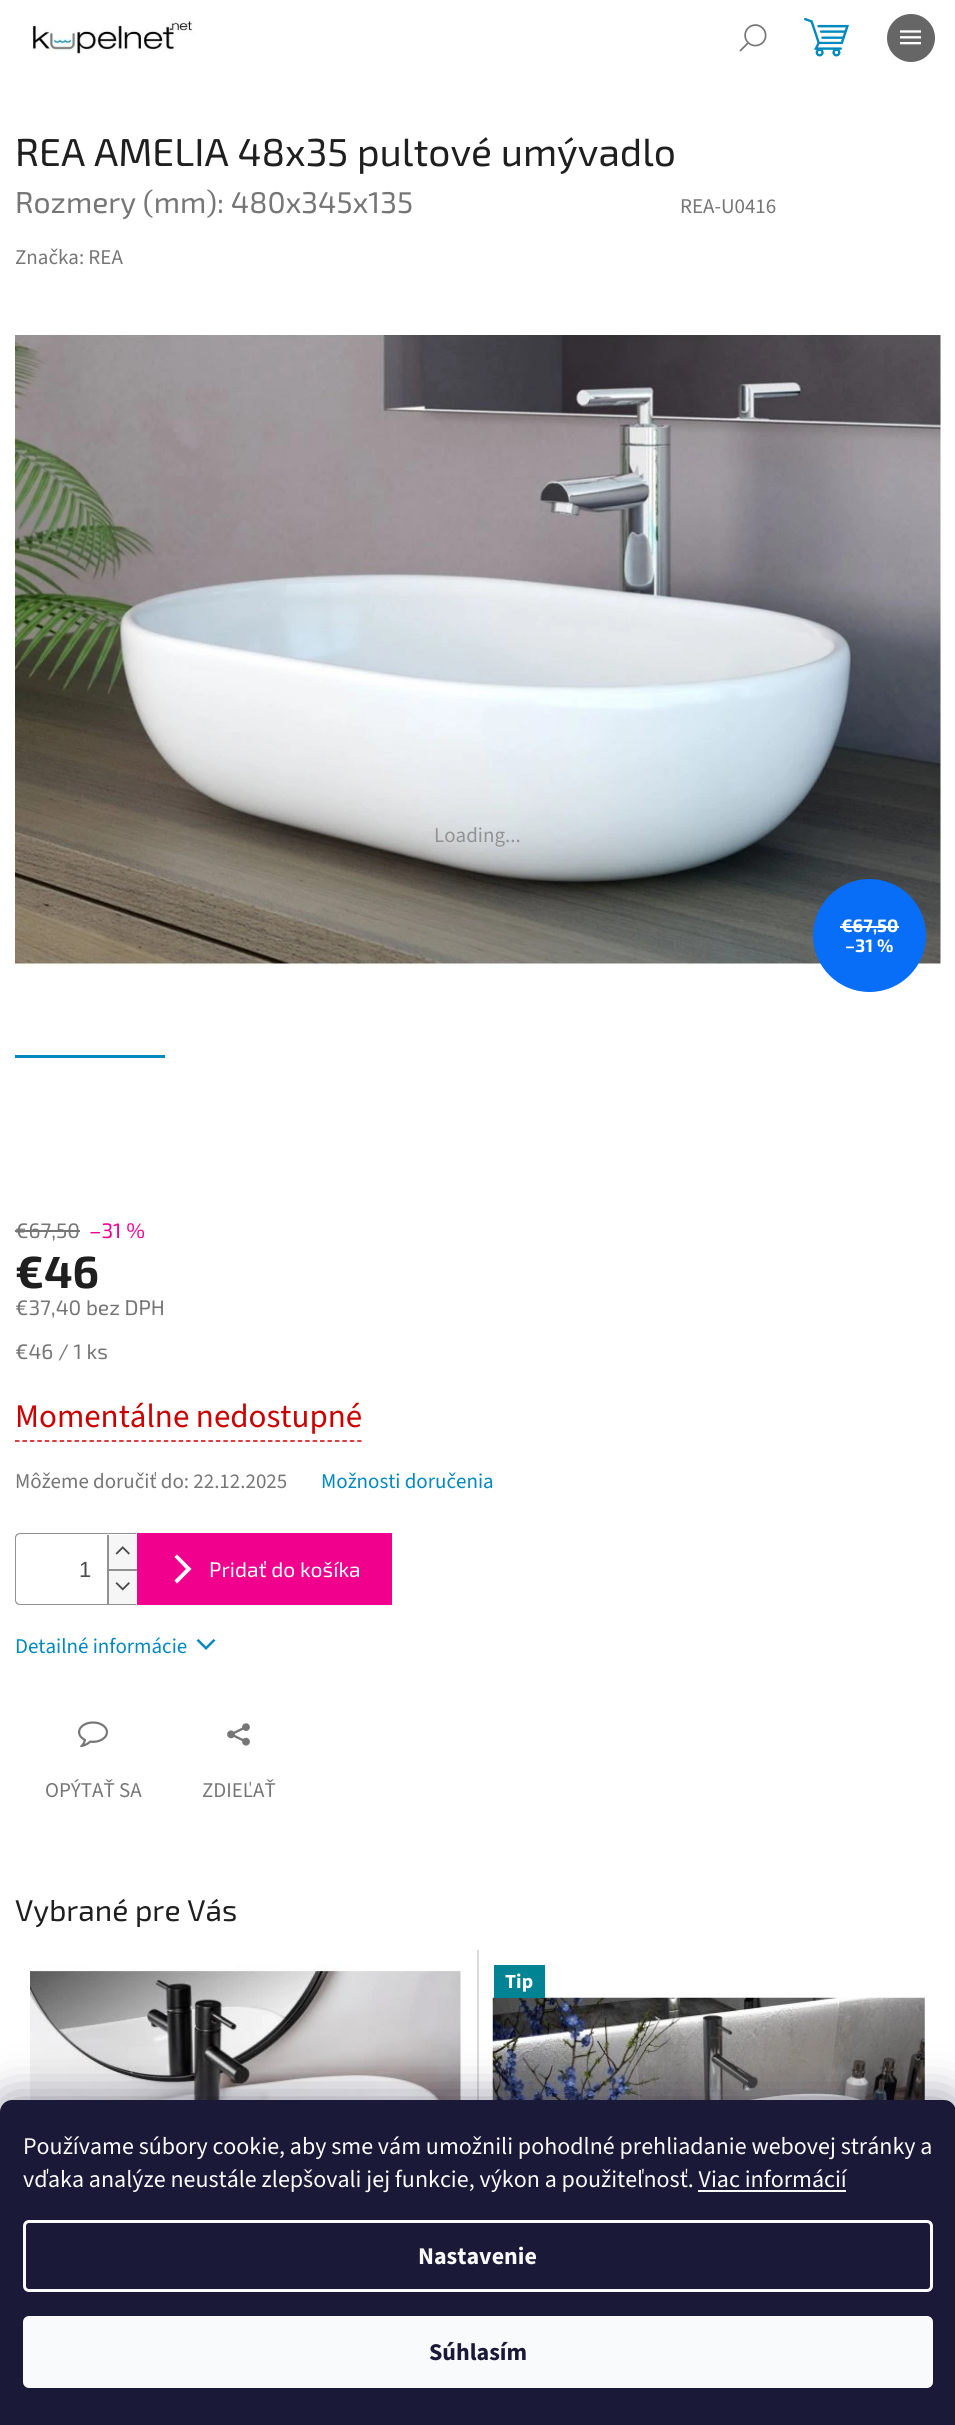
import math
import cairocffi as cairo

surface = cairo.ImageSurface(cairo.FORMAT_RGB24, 955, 2425)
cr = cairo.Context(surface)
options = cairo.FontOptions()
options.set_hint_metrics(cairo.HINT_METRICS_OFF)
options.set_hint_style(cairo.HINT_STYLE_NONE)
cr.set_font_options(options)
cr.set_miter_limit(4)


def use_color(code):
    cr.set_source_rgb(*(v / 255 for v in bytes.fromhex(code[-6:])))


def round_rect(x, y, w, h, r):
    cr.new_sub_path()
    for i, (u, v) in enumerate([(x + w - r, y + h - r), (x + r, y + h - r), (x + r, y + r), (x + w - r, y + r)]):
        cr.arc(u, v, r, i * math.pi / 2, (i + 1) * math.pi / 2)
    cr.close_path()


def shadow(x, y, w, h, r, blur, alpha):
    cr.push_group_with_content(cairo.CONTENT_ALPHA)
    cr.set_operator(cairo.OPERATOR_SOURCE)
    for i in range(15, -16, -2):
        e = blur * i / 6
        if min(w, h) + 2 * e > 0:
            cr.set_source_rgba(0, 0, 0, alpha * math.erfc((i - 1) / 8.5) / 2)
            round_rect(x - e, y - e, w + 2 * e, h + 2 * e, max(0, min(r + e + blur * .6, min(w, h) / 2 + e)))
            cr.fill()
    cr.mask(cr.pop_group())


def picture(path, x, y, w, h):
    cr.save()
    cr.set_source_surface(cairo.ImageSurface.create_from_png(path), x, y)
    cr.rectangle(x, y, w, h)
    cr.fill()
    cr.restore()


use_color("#ffffff")
cr.paint()
picture("img1.png", 739, 24, 28, 28)
use_color("#666666")
cr.arc(911, 38, 24, 0, 2 * math.pi)
cr.fill()
picture("img2.png", 900, 30, 21, 15)
picture("img3.png", 32, 20, 162, 34)
picture("img4.png", 804, 17, 45, 40)
cr.select_font_face("Exo 2")
cr.set_font_size(39)
use_color("#1f1f1f")
cr.move_to(15, 166)
cr.show_text("REA AMELIA 48x35 pultové umývadlo")
cr.set_font_size(30)
use_color("#767676")
cr.move_to(15, 213)
cr.show_text("Rozmery (mm): 480x345x135")
cr.select_font_face("Source Sans 3")
cr.set_font_size(21)
cr.move_to(680, 213)
cr.show_text("REA-U0416")
cr.move_to(15, 264)
cr.show_text("Značka: REA")
picture("img5.png", 15, 334, 926, 633)
use_color("#909294")
cr.move_to(434, 842)
cr.show_text("Loading...")
use_color("#086df7")
cr.new_path()
cr.arc(869.5, 935.5, 56.5, 0, 2 * math.pi)
cr.fill()
cr.select_font_face("Exo 2", cairo.FONT_SLANT_NORMAL, cairo.FONT_WEIGHT_BOLD)
cr.set_font_size(18)
use_color("#ffffff")
cr.move_to(841, 932)
cr.show_text("€67,50")
cr.rectangle(840, 926, 59, 2)
cr.fill()
cr.move_to(845, 952)
cr.show_text("–31 %")
use_color("#0088bf")
cr.rectangle(15, 1055, 150, 3)
cr.fill()
cr.select_font_face("Exo 2")
cr.set_font_size(21)
use_color("#767676")
cr.move_to(15, 1238)
cr.show_text("€67,50")
cr.rectangle(15, 1230, 65, 2)
cr.fill()
use_color("#f1008d")
cr.move_to(89, 1238)
cr.show_text("–31 %")
cr.select_font_face("Exo 2", cairo.FONT_SLANT_NORMAL, cairo.FONT_WEIGHT_BOLD)
cr.set_font_size(45)
use_color("#1f1f1f")
cr.move_to(15, 1288)
cr.show_text("€46")
cr.select_font_face("Exo 2")
cr.set_font_size(21)
use_color("#767676")
cr.move_to(15, 1315)
cr.show_text("€37,40 bez DPH")
cr.move_to(15, 1359)
cr.show_text("€46 / 1 ks")
cr.select_font_face("Source Sans 3")
cr.set_font_size(33)
use_color("#cb0000")
cr.move_to(15, 1427)
cr.show_text("Momentálne nedostupné")
cr.new_path()
cr.move_to(15, 1441)
cr.line_to(361.5, 1441)
cr.set_line_width(1.5)
cr.set_dash([4.5, 2.94])
cr.stroke()
cr.set_font_size(21)
use_color("#767676")
cr.move_to(15, 1488)
cr.show_text("Môžeme doručiť do: 22.12.2025")
use_color("#0088bf")
cr.move_to(321, 1488)
cr.show_text("Možnosti doručenia")
use_color("#919191")
cr.set_fill_rule(cairo.FILL_RULE_EVEN_ODD)
cr.new_path()
cr.move_to(20, 1533)
cr.line_to(136, 1533)
cr.line_to(136, 1605)
cr.line_to(20, 1605)
cr.curve_to(17, 1605, 15, 1603, 15, 1600)
cr.line_to(15, 1538)
cr.curve_to(15, 1535, 17, 1533, 20, 1533)
cr.close_path()
cr.move_to(20, 1534)
cr.line_to(136, 1534)
cr.line_to(136, 1604)
cr.line_to(20, 1604)
cr.curve_to(18, 1604, 16, 1602, 16, 1600)
cr.line_to(16, 1538)
cr.curve_to(16, 1536, 18, 1534, 20, 1534)
cr.close_path()
cr.fill()
cr.select_font_face("Liberation Sans")
cr.set_font_size(22)
use_color("#4d4d4d")
cr.move_to(79, 1577)
cr.show_text("1")
use_color("#f6f6f6")
cr.rectangle(109, 1535, 28, 34)
cr.fill()
use_color("#919191")
cr.rectangle(107, 1535, 2, 34)
cr.fill()
picture("img6.png", 115, 1546, 15, 9)
use_color("#f6f6f6")
cr.rectangle(109, 1571, 28, 33)
cr.fill()
use_color("#919191")
cr.rectangle(107, 1569, 30, 2)
cr.fill()
cr.rectangle(107, 1569, 2, 35)
cr.fill()
picture("img7.png", 115, 1582, 15, 9)
use_color("#f1008d")
cr.rectangle(137, 1533, 255, 72)
cr.fill()
use_color("#ffffff")
cr.set_fill_rule(cairo.FILL_RULE_WINDING)
cr.new_path()
cr.move_to(177, 1583.5)
cr.line_to(174.5, 1580.5)
cr.line_to(186, 1569)
cr.line_to(174.5, 1557)
cr.line_to(177, 1554.5)
cr.line_to(191.5, 1569)
cr.close_path()
cr.fill()
cr.select_font_face("Exo 2")
cr.set_font_size(21)
cr.move_to(209, 1577)
cr.show_text("Pridať do košíka")
cr.select_font_face("Source Sans 3")
use_color("#0088bf")
cr.move_to(15, 1653)
cr.show_text("Detailné informácie")
cr.new_path()
cr.move_to(196.5, 1640.5)
cr.line_to(198.5, 1639)
cr.line_to(206, 1646.5)
cr.line_to(213.5, 1639)
cr.line_to(215.5, 1640.5)
cr.line_to(206, 1650)
cr.close_path()
cr.fill()
picture("img8.png", 78, 1721, 30, 27)
use_color("#767676")
cr.move_to(45, 1797)
cr.show_text("OPÝTAŤ SA")
picture("img9.png", 227, 1723, 23, 23)
cr.move_to(202, 1797)
cr.show_text("ZDIEĽAŤ")
cr.select_font_face("Exo 2")
cr.set_font_size(30)
use_color("#1f1f1f")
cr.move_to(15, 1921)
cr.show_text("Vybrané pre Vás")
use_color("#dadada")
cr.rectangle(477, 1950, 2, 150)
cr.fill()
picture("img10.png", 30, 1965, 431, 135)
picture("img11.png", 492, 1997, 433, 103)
use_color("#008392")
cr.rectangle(494, 1965, 51, 33)
cr.fill()
cr.select_font_face("Source Sans 3", cairo.FONT_SLANT_NORMAL, cairo.FONT_WEIGHT_BOLD)
cr.set_font_size(20)
use_color("#ffffff")
cr.move_to(505, 1988)
cr.show_text("Tip")
use_color("#1b1939")
shadow(0, 2100, 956, 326, 12, 22.5, 0.5)
use_color("#1a1937")
cr.new_path()
cr.move_to(12, 2100)
cr.line_to(944, 2100)
cr.curve_to(950.5, 2100, 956, 2105.5, 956, 2112)
cr.line_to(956, 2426)
cr.line_to(0, 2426)
cr.line_to(0, 2112)
cr.curve_to(0, 2105.5, 5.5, 2100, 12, 2100)
cr.close_path()
cr.fill()
cr.select_font_face("Source Sans 3")
cr.set_font_size(24)
use_color("#f8fafb")
cr.move_to(23, 2154)
cr.show_text("Používame súbory cookie, aby sme vám umožnili pohodlné prehliadanie webovej stránky a")
cr.move_to(23, 2187)
cr.show_text("vďaka analýze neustále zlepšovali jej funkcie, výkon a použiteľnosť. Viac informácií")
cr.rectangle(698, 2190, 148, 2)
cr.fill()
round_rect(24.5, 2221.5, 907, 69, 4.5)
cr.set_line_width(3)
cr.set_dash([])
cr.stroke()
cr.select_font_face("Source Sans 3", cairo.FONT_SLANT_NORMAL, cairo.FONT_WEIGHT_BOLD)
cr.move_to(418, 2264)
cr.show_text("Nastavenie")
round_rect(23, 2316, 910, 72, 6)
cr.fill()
use_color("#1a1937")
cr.move_to(429, 2360)
cr.show_text("Súhlasím")
surface.write_to_png("result.png")
